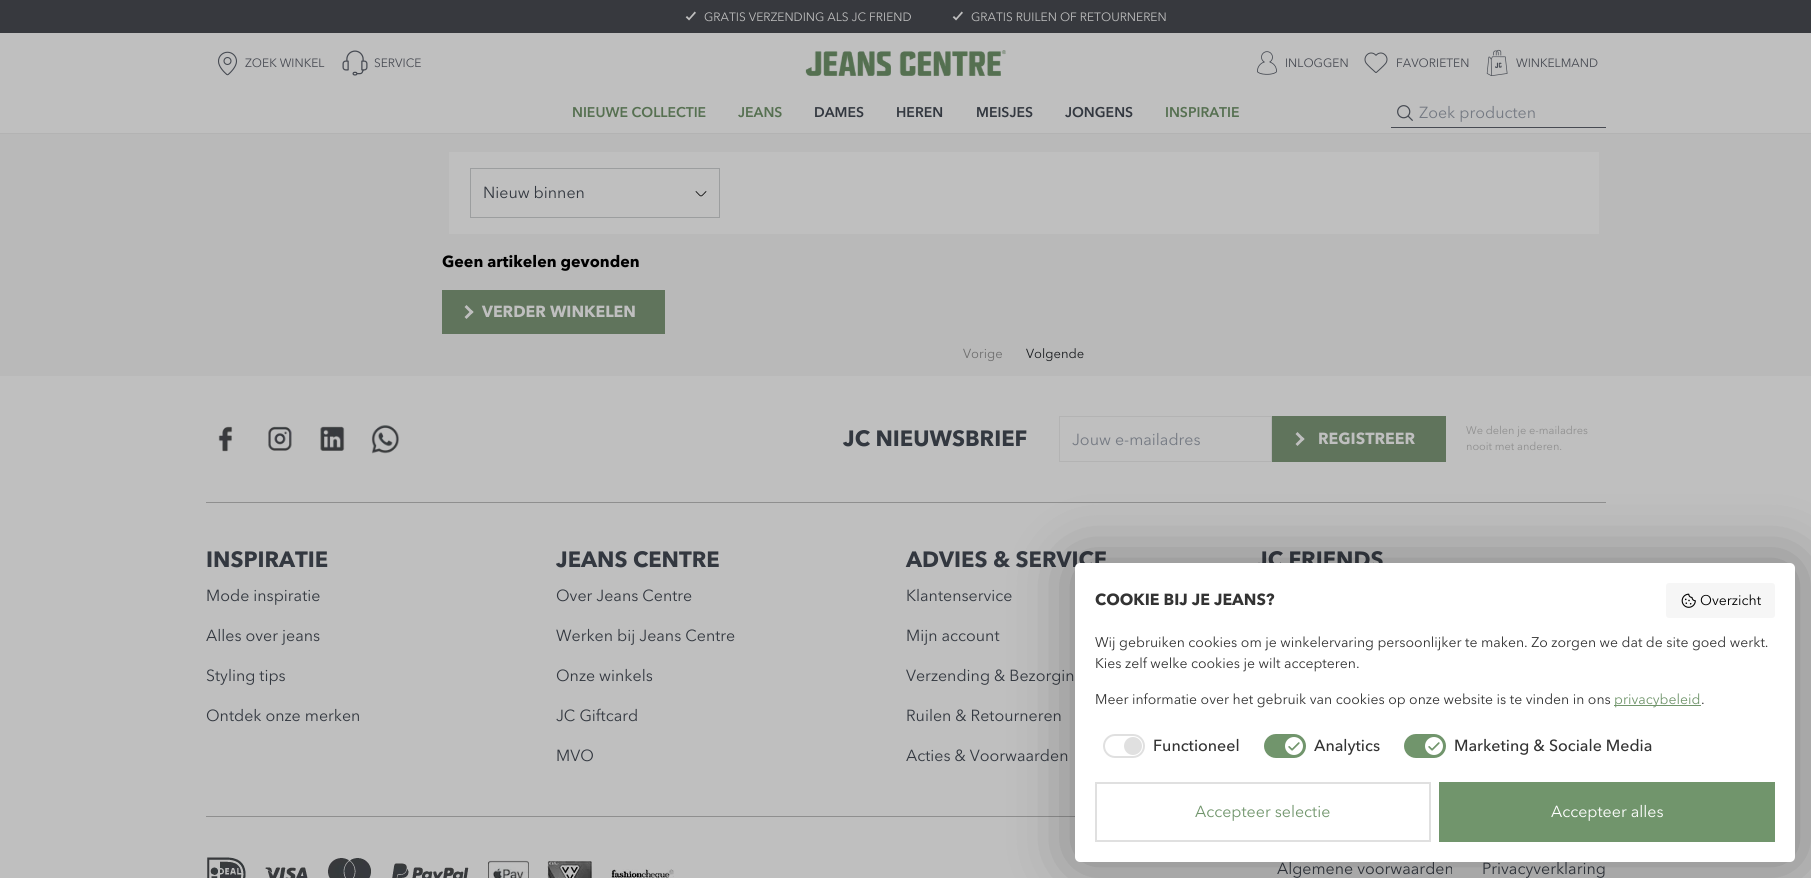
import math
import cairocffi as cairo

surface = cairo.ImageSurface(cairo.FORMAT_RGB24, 1811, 878)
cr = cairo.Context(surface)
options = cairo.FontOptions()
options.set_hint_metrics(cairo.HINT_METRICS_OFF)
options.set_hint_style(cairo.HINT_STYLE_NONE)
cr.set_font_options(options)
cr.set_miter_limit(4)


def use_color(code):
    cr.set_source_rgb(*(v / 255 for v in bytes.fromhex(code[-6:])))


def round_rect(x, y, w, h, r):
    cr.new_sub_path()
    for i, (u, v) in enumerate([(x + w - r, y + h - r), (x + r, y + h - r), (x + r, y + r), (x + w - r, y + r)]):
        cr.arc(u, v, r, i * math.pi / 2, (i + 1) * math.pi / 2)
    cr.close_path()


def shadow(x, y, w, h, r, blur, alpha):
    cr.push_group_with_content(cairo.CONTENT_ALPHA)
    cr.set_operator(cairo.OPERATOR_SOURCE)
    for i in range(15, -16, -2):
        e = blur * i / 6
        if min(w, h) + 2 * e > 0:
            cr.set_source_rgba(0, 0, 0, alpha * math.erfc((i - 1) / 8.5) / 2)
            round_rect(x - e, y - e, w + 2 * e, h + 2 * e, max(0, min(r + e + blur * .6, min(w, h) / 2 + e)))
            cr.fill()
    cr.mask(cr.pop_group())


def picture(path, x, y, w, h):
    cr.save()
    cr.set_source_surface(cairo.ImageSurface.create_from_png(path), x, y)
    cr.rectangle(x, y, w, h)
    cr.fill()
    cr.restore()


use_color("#b9b9b9")
cr.paint()
use_color("#37393e")
cr.rectangle(0, 0, 1811, 33)
cr.fill()
picture("img1.png", 685, 11, 11, 10)
cr.select_font_face("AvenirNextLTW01")
cr.set_font_size(12)
use_color("#bfbfbf")
cr.move_to(704, 21)
cr.show_text("GRATIS VERZENDING ALS JC FRIEND")
picture("img1.png", 952, 11, 11, 10)
cr.move_to(971, 21)
cr.show_text("GRATIS RUILEN OF RETOURNEREN")
cr.rectangle(0, 33, 1811, 100)
cr.fill()
picture("img2.png", 218, 51, 19, 25)
use_color("#474a52")
cr.move_to(245, 67)
cr.show_text("ZOEK WINKEL")
picture("img3.png", 342, 50, 26, 26)
cr.move_to(374, 67)
cr.show_text("SERVICE")
picture("img4.png", 805, 50, 201, 26)
picture("img5.png", 1257, 51, 20, 24)
cr.move_to(1285, 67)
cr.show_text("INLOGGEN")
picture("img6.png", 1364, 52, 24, 21)
cr.move_to(1396, 67)
cr.show_text("FAVORIETEN")
picture("img7.png", 1486, 49, 22, 27)
cr.move_to(1516, 67)
cr.show_text("WINKELMAND")
cr.select_font_face("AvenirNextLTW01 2", cairo.FONT_SLANT_NORMAL, cairo.FONT_WEIGHT_BOLD)
cr.set_font_size(14)
use_color("#567051")
cr.move_to(572, 117)
cr.show_text("NIEUWE COLLECTIE")
cr.move_to(738, 117)
cr.show_text("JEANS")
use_color("#333840")
cr.move_to(814, 117)
cr.show_text("DAMES")
cr.move_to(896, 117)
cr.show_text("HEREN")
cr.move_to(976, 117)
cr.show_text("MEISJES")
cr.move_to(1065, 117)
cr.show_text("JONGENS")
use_color("#567051")
cr.move_to(1165, 117)
cr.show_text("INSPIRATIE")
use_color("#b3b3b3")
cr.rectangle(0, 133, 1811, 1)
cr.fill()
use_color("#474a52")
cr.rectangle(1391, 127, 215, 1)
cr.fill()
picture("img8.png", 1397, 105, 16, 16)
cr.select_font_face("AvenirNextLTW01")
cr.set_font_size(16)
use_color("#757a83")
cr.move_to(1419, 118)
cr.show_text("Zoek producten")
use_color("#bfbfbf")
cr.rectangle(449, 152, 1150, 82)
cr.fill()
cr.rectangle(470.5, 168.5, 249, 49)
use_color("#9c9e9f")
cr.set_line_width(1)
cr.stroke()
use_color("#333840")
cr.move_to(483, 198)
cr.show_text("Nieuw binnen")
cr.new_path()
cr.move_to(706, 191.5)
cr.curve_to(700, 197.5, 702, 197.5, 696, 191.5)
use_color("#000000")
cr.set_line_width(0.8)
cr.set_line_cap(cairo.LINE_CAP_ROUND)
cr.stroke()
cr.select_font_face("AvenirNextLTW01", cairo.FONT_SLANT_NORMAL, cairo.FONT_WEIGHT_BOLD)
cr.move_to(442, 267)
cr.show_text("Geen artikelen gevonden")
use_color("#60745c")
cr.rectangle(442, 290, 223, 44)
cr.fill()
use_color("#bfbfbf")
cr.new_path()
cr.move_to(466.5, 305)
cr.line_to(473.5, 312)
cr.line_to(471.5, 314)
cr.line_to(464.5, 307)
cr.close_path()
cr.fill()
cr.new_path()
cr.move_to(471.5, 310)
cr.line_to(473.5, 312)
cr.line_to(466.5, 319)
cr.line_to(464.5, 317)
cr.close_path()
cr.fill()
cr.move_to(482, 317)
cr.show_text("VERDER WINKELEN")
cr.select_font_face("AvenirNextLTW01")
cr.set_font_size(13)
use_color("#6e6e6e")
cr.move_to(963, 358)
cr.show_text("Vorige")
use_color("#191c1f")
cr.move_to(1026, 358)
cr.show_text("Volgende")
use_color("#bfbfbf")
cr.rectangle(0, 376, 1811, 502)
cr.fill()
picture("img9.png", 218, 426, 15, 26)
picture("img10.png", 268, 426, 24, 25)
picture("img11.png", 320, 426, 25, 25)
picture("img12.png", 371, 425, 29, 29)
cr.select_font_face("AvenirNextLTW01", cairo.FONT_SLANT_NORMAL, cairo.FONT_WEIGHT_BOLD)
cr.set_font_size(22)
use_color("#333840")
cr.move_to(843, 446)
cr.show_text("JC NIEUWSBRIEF")
cr.rectangle(1059.5, 416.5, 212, 45)
use_color("#b3b3b3")
cr.set_line_width(1)
cr.set_line_cap(cairo.LINE_CAP_BUTT)
cr.stroke()
cr.select_font_face("AvenirNextLTW01")
cr.set_font_size(16)
use_color("#757a83")
cr.move_to(1072, 445)
cr.show_text("Jouw e-mailadres")
use_color("#60745c")
cr.rectangle(1272, 416, 174, 46)
cr.fill()
use_color("#bfbfbf")
cr.new_path()
cr.move_to(1297.5, 432)
cr.line_to(1304.5, 439)
cr.line_to(1302.5, 441)
cr.line_to(1295.5, 434)
cr.close_path()
cr.fill()
cr.new_path()
cr.move_to(1302.5, 437)
cr.line_to(1304.5, 439)
cr.line_to(1297.5, 446)
cr.line_to(1295.5, 444)
cr.close_path()
cr.fill()
cr.select_font_face("AvenirNextLTW01", cairo.FONT_SLANT_NORMAL, cairo.FONT_WEIGHT_BOLD)
cr.move_to(1318, 444)
cr.show_text("REGISTREER")
cr.select_font_face("AvenirNextLTW01")
cr.set_font_size(11)
use_color("#8f8f8f")
cr.move_to(1466, 434)
cr.show_text("We delen je e-mailadres")
cr.move_to(1466, 450)
cr.show_text("nooit met anderen.")
cr.rectangle(206, 502, 1400, 1)
cr.fill()
cr.select_font_face("AvenirNextLTW01", cairo.FONT_SLANT_NORMAL, cairo.FONT_WEIGHT_BOLD)
cr.set_font_size(22)
use_color("#333840")
cr.move_to(206, 567)
cr.show_text("INSPIRATIE")
cr.select_font_face("AvenirNextLTW01")
cr.set_font_size(16)
cr.move_to(206, 601)
cr.show_text("Mode inspiratie")
cr.move_to(206, 641)
cr.show_text("Alles over jeans")
cr.move_to(206, 681)
cr.show_text("Styling tips")
cr.move_to(206, 721)
cr.show_text("Ontdek onze merken")
cr.select_font_face("AvenirNextLTW01", cairo.FONT_SLANT_NORMAL, cairo.FONT_WEIGHT_BOLD)
cr.set_font_size(22)
cr.move_to(556, 567)
cr.show_text("JEANS CENTRE")
cr.select_font_face("AvenirNextLTW01")
cr.set_font_size(16)
cr.move_to(556, 601)
cr.show_text("Over Jeans Centre")
cr.move_to(556, 641)
cr.show_text("Werken bij Jeans Centre")
cr.move_to(556, 681)
cr.show_text("Onze winkels")
cr.move_to(556, 721)
cr.show_text("JC Giftcard")
cr.move_to(556, 761)
cr.show_text("MVO")
cr.select_font_face("AvenirNextLTW01", cairo.FONT_SLANT_NORMAL, cairo.FONT_WEIGHT_BOLD)
cr.set_font_size(22)
cr.move_to(906, 567)
cr.show_text("ADVIES & SERVICE")
cr.select_font_face("AvenirNextLTW01")
cr.set_font_size(16)
cr.move_to(906, 601)
cr.show_text("Klantenservice")
cr.move_to(906, 641)
cr.show_text("Mijn account")
cr.move_to(906, 681)
cr.show_text("Verzending & Bezorgin")
cr.move_to(906, 721)
cr.show_text("Ruilen & Retourneren")
cr.move_to(906, 761)
cr.show_text("Acties & Voorwaarden")
cr.select_font_face("AvenirNextLTW01", cairo.FONT_SLANT_NORMAL, cairo.FONT_WEIGHT_BOLD)
cr.set_font_size(22)
cr.move_to(1256, 567)
cr.show_text("JC FRIENDS")
use_color("#8f8f8f")
cr.rectangle(206, 816, 869, 1)
cr.fill()
picture("img13.png", 207, 857, 39, 21)
picture("img14.png", 265, 867, 43, 11)
picture("img15.png", 328, 858, 43, 20)
picture("img16.png", 392, 863, 77, 15)
picture("img17.png", 488, 860, 41, 18)
picture("img18.png", 547, 861, 45, 17)
picture("img19.png", 610, 869, 64, 9)
cr.select_font_face("AvenirNextLTW01")
cr.set_font_size(16)
use_color("#333840")
cr.move_to(1277, 874)
cr.show_text("Algemene voorwaarden")
cr.move_to(1482, 874)
cr.show_text("Privacyverklaring")
use_color("#000000")
shadow(1075, 563, 720, 299, 5, 32, 0.33)
use_color("#ffffff")
round_rect(1075, 563, 720, 299, 5)
cr.fill()
cr.select_font_face("AvenirNextLTW01", cairo.FONT_SLANT_NORMAL, cairo.FONT_WEIGHT_BOLD)
use_color("#333333")
cr.move_to(1095, 605)
cr.show_text("COOKIE BIJ JE JEANS?")
use_color("#f6f6f6")
round_rect(1666, 583, 109, 35, 3)
cr.fill()
picture("img20.png", 1681, 593, 15, 15)
cr.select_font_face("AvenirNextLTW01")
cr.set_font_size(14)
use_color("#000000")
cr.move_to(1700, 605)
cr.show_text("Overzicht")
use_color("#333333")
cr.move_to(1095, 647)
cr.show_text("Wij gebruiken cookies om je winkelervaring persoonlijker te maken. Zo zorgen we dat de site goed werkt.")
cr.move_to(1095, 668)
cr.show_text("Kies zelf welke cookies je wilt accepteren.")
cr.move_to(1095, 704)
cr.show_text("Meer informatie over het gebruik van cookies op onze website is te vinden in ons")
use_color("#71956c")
cr.rectangle(1614, 705, 87, 1)
cr.fill()
cr.move_to(1614, 704)
cr.show_text("privacybeleid")
use_color("#333333")
cr.move_to(1701, 704)
cr.show_text(".")
round_rect(1104, 735, 40, 22, 11)
use_color("#e0e0e0")
cr.set_line_width(2)
cr.stroke()
cr.arc(1133, 746, 9, 0, 2 * math.pi)
cr.fill()
cr.select_font_face("AvenirNextLTW01 Medium")
cr.set_font_size(16)
use_color("#333333")
cr.move_to(1153, 751)
cr.show_text("Functioneel")
use_color("#71956c")
round_rect(1265, 735, 40, 22, 11)
cr.fill_preserve()
cr.stroke()
use_color("#ffffff")
cr.arc(1294, 746, 9, 0, 2 * math.pi)
cr.fill()
picture("img21.png", 1288, 742, 12, 9)
use_color("#333333")
cr.move_to(1314, 751)
cr.show_text("Analytics")
use_color("#71956c")
round_rect(1405, 735, 40, 22, 11)
cr.fill_preserve()
cr.stroke()
use_color("#ffffff")
cr.arc(1434, 746, 9, 0, 2 * math.pi)
cr.fill()
picture("img21.png", 1428, 742, 12, 9)
use_color("#333333")
cr.move_to(1454, 751)
cr.show_text("Marketing & Sociale Media")
cr.rectangle(1096, 783, 334, 58)
use_color("#e0e0e0")
cr.stroke()
cr.select_font_face("AvenirNextLTW01")
use_color("#71956c")
cr.move_to(1195, 817)
cr.show_text("Accepteer selectie")
cr.rectangle(1439, 782, 336, 60)
cr.fill()
use_color("#ffffff")
cr.move_to(1551, 817)
cr.show_text("Accepteer alles")
surface.write_to_png("result.png")
